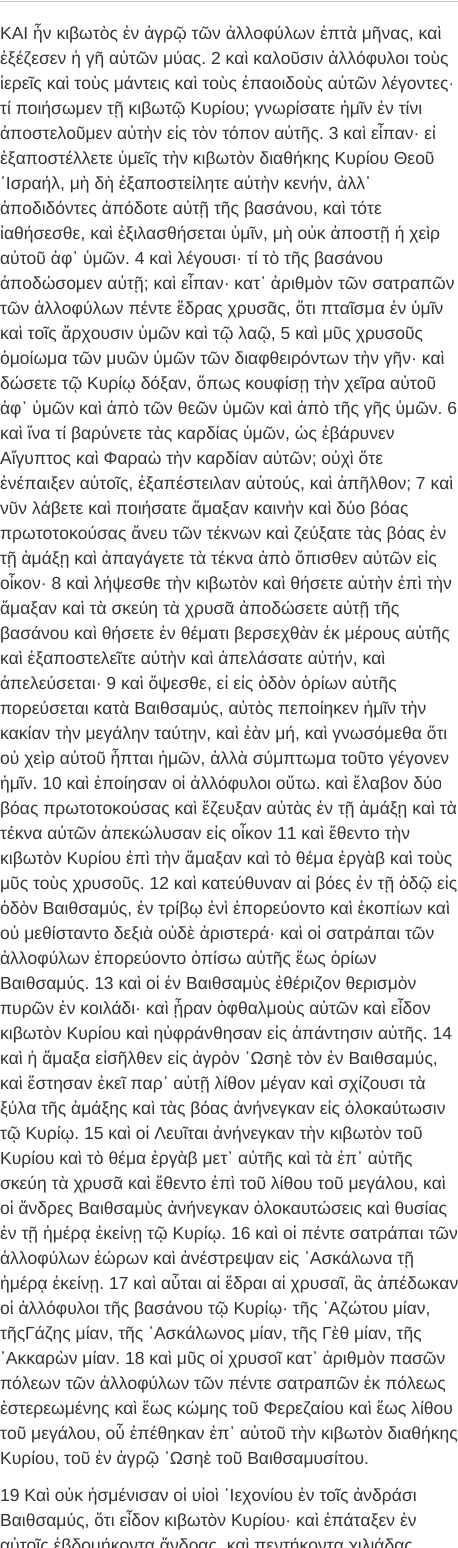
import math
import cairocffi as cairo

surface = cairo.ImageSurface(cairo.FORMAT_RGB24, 458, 1548)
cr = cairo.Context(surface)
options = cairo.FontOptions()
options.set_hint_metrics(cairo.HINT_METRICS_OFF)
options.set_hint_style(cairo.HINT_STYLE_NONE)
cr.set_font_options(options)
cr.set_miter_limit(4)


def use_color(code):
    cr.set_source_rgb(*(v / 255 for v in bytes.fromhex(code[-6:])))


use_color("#ffffff")
cr.paint()
use_color("#c8c9ca")
cr.rectangle(0, 1, 458, 1)
cr.fill()
cr.select_font_face("Liberation Sans")
cr.set_font_size(17.5)
use_color("#333333")
cr.move_to(0, 39)
cr.show_text("ΚΑΙ ἦν κιβωτὸς ἐν ἀγρῷ τῶν ἀλλοφύλων ἑπτὰ μῆνας, καὶ")
cr.move_to(0, 64)
cr.show_text("ἐξέζεσεν ἡ γῆ αὐτῶν μύας. 2 καὶ καλοῦσιν ἀλλόφυλοι τοὺς")
cr.move_to(0, 89)
cr.show_text("ἱερεῖς καὶ τοὺς μάντεις καὶ τοὺς ἐπαοιδοὺς αὐτῶν λέγοντες·")
cr.move_to(0, 114)
cr.show_text("τί ποιήσωμεν τῇ κιβωτῷ Κυρίου; γνωρίσατε ἡμῖν ἐν τίνι")
cr.move_to(0, 139)
cr.show_text("ἀποστελοῦμεν αὐτὴν εἰς τὸν τόπον αὐτῆς. 3 καὶ εἶπαν· εἰ")
cr.move_to(0, 164)
cr.show_text("ἐξαποστέλλετε ὑμεῖς τὴν κιβωτὸν διαθήκης Κυρίου Θεοῦ")
cr.move_to(0, 189)
cr.show_text("᾿Ισραήλ, μὴ δὴ ἐξαποστείλητε αὐτὴν κενήν, ἀλλ᾿")
cr.move_to(0, 214)
cr.show_text("ἀποδιδόντες ἀπόδοτε αὐτῇ τῆς βασάνου, καὶ τότε")
cr.move_to(0, 239)
cr.show_text("ἰαθήσεσθε, καὶ ἐξιλασθήσεται ὑμῖν, μὴ οὐκ ἀποστῇ ἡ χεὶρ")
cr.move_to(0, 264)
cr.show_text("αὐτοῦ ἀφ᾿ ὑμῶν. 4 καὶ λέγουσι· τί τὸ τῆς βασάνου")
cr.move_to(0, 289)
cr.show_text("ἀποδώσομεν αὐτῇ; καὶ εἶπαν· κατ᾿ ἀριθμὸν τῶν σατραπῶν")
cr.move_to(0, 314)
cr.show_text("τῶν ἀλλοφύλων πέντε ἕδρας χρυσᾶς, ὅτι πταῖσμα ἐν ὑμῖν")
cr.move_to(0, 339)
cr.show_text("καὶ τοῖς ἄρχουσιν ὑμῶν καὶ τῷ λαῷ, 5 καὶ μῦς χρυσοῦς")
cr.move_to(0, 364)
cr.show_text("ὁμοίωμα τῶν μυῶν ὑμῶν τῶν διαφθειρόντων τὴν γῆν· καὶ")
cr.move_to(0, 389)
cr.show_text("δώσετε τῷ Κυρίῳ δόξαν, ὅπως κουφίσῃ τὴν χεῖρα αὐτοῦ")
cr.move_to(0, 414)
cr.show_text("ἀφ᾿ ὑμῶν καὶ ἀπὸ τῶν θεῶν ὑμῶν καὶ ἀπὸ τῆς γῆς ὑμῶν. 6")
cr.move_to(0, 439)
cr.show_text("καὶ ἵνα τί βαρύνετε τὰς καρδίας ὑμῶν, ὡς ἐβάρυνεν")
cr.move_to(0, 464)
cr.show_text("Αἴγυπτος καὶ Φαραὼ τὴν καρδίαν αὐτῶν; οὐχὶ ὅτε")
cr.move_to(0, 489)
cr.show_text("ἐνέπαιξεν αὐτοῖς, ἐξαπέστειλαν αὐτούς, καὶ ἀπῆλθον; 7 καὶ")
cr.move_to(0, 514)
cr.show_text("νῦν λάβετε καὶ ποιήσατε ἅμαξαν καινὴν καὶ δύο βόας")
cr.move_to(0, 539)
cr.show_text("πρωτοτοκούσας ἄνευ τῶν τέκνων καὶ ζεύξατε τὰς βόας ἐν")
cr.move_to(0, 564)
cr.show_text("τῇ ἁμάξῃ καὶ ἀπαγάγετε τὰ τέκνα ἀπὸ ὄπισθεν αὐτῶν εἰς")
cr.move_to(0, 589)
cr.show_text("οἶκον· 8 καὶ λήψεσθε τὴν κιβωτὸν καὶ θήσετε αὐτὴν ἐπὶ τὴν")
cr.move_to(0, 614)
cr.show_text("ἅμαξαν καὶ τὰ σκεύη τὰ χρυσᾶ ἀποδώσετε αὐτῇ τῆς")
cr.move_to(0, 639)
cr.show_text("βασάνου καὶ θήσετε ἐν θέματι βερσεχθὰν ἐκ μέρους αὐτῆς")
cr.move_to(0, 664)
cr.show_text("καὶ ἐξαποστελεῖτε αὐτὴν καὶ ἀπελάσατε αὐτήν, καὶ")
cr.move_to(0, 689)
cr.show_text("ἀπελεύσεται· 9 καὶ ὄψεσθε, εἰ εἰς ὁδὸν ὁρίων αὐτῆς")
cr.move_to(0, 714)
cr.show_text("πορεύσεται κατὰ Βαιθσαμύς, αὐτὸς πεποίηκεν ἡμῖν τὴν")
cr.move_to(0, 739)
cr.show_text("κακίαν τὴν μεγάλην ταύτην, καὶ ἐὰν μή, καὶ γνωσόμεθα ὅτι")
cr.move_to(0, 764)
cr.show_text("οὐ χεὶρ αὐτοῦ ἧπται ἡμῶν, ἀλλὰ σύμπτωμα τοῦτο γέγονεν")
cr.move_to(0, 789)
cr.show_text("ἡμῖν. 10 καὶ ἐποίησαν οἱ ἀλλόφυλοι οὕτω. καὶ ἔλαβον δύο")
cr.move_to(0, 814)
cr.show_text("βόας πρωτοτοκούσας καὶ ἔζευξαν αὐτὰς ἐν τῇ ἁμάξῃ καὶ τὰ")
cr.move_to(0, 839)
cr.show_text("τέκνα αὐτῶν ἀπεκώλυσαν εἰς οἶκον 11 καὶ ἔθεντο τὴν")
cr.move_to(0, 864)
cr.show_text("κιβωτὸν Κυρίου ἐπὶ τὴν ἅμαξαν καὶ τὸ θέμα ἐργὰβ καὶ τοὺς")
cr.move_to(0, 889)
cr.show_text("μῦς τοὺς χρυσοῦς. 12 καὶ κατεύθυναν αἱ βόες ἐν τῇ ὁδῷ εἰς")
cr.move_to(0, 914)
cr.show_text("ὁδὸν Βαιθσαμύς, ἐν τρίβῳ ἑνὶ ἐπορεύοντο καὶ ἐκοπίων καὶ")
cr.move_to(0, 939)
cr.show_text("οὐ μεθίσταντο δεξιὰ οὐδὲ ἀριστερά· καὶ οἱ σατράπαι τῶν")
cr.move_to(0, 964)
cr.show_text("ἀλλοφύλων ἐπορεύοντο ὀπίσω αὐτῆς ἕως ὁρίων")
cr.move_to(0, 989)
cr.show_text("Βαιθσαμύς. 13 καὶ οἱ ἐν Βαιθσαμὺς ἐθέριζον θερισμὸν")
cr.move_to(0, 1014)
cr.show_text("πυρῶν ἐν κοιλάδι· καὶ ᾖραν ὀφθαλμοὺς αὐτῶν καὶ εἶδον")
cr.move_to(0, 1039)
cr.show_text("κιβωτὸν Κυρίου καὶ ηὐφράνθησαν εἰς ἀπάντησιν αὐτῆς. 14")
cr.move_to(0, 1064)
cr.show_text("καὶ ἡ ἅμαξα εἰσῆλθεν εἰς ἀγρὸν ᾿Ωσηὲ τὸν ἐν Βαιθσαμύς,")
cr.move_to(0, 1089)
cr.show_text("καὶ ἔστησαν ἐκεῖ παρ᾿ αὐτῇ λίθον μέγαν καὶ σχίζουσι τὰ")
cr.move_to(0, 1114)
cr.show_text("ξύλα τῆς ἁμάξης καὶ τὰς βόας ἀνήνεγκαν εἰς ὁλοκαύτωσιν")
cr.move_to(0, 1139)
cr.show_text("τῷ Κυρίῳ. 15 καὶ οἱ Λευῖται ἀνήνεγκαν τὴν κιβωτὸν τοῦ")
cr.move_to(0, 1164)
cr.show_text("Κυρίου καὶ τὸ θέμα ἐργὰβ μετ᾿ αὐτῆς καὶ τὰ ἐπ᾿ αὐτῆς")
cr.move_to(0, 1189)
cr.show_text("σκεύη τὰ χρυσᾶ καὶ ἔθεντο ἐπὶ τοῦ λίθου τοῦ μεγάλου, καὶ")
cr.move_to(0, 1214)
cr.show_text("οἱ ἄνδρες Βαιθσαμὺς ἀνήνεγκαν ὁλοκαυτώσεις καὶ θυσίας")
cr.move_to(0, 1239)
cr.show_text("ἐν τῇ ἡμέρᾳ ἐκείνῃ τῷ Κυρίῳ. 16 καὶ οἱ πέντε σατράπαι τῶν")
cr.move_to(0, 1264)
cr.show_text("ἀλλοφύλων ἑώρων καὶ ἀνέστρεψαν εἰς ᾿Ασκάλωνα τῇ")
cr.move_to(0, 1289)
cr.show_text("ἡμέρᾳ ἐκείνῃ. 17 καὶ αὗται αἱ ἕδραι αἱ χρυσαῖ, ἃς ἀπέδωκαν")
cr.move_to(0, 1314)
cr.show_text("οἱ ἀλλόφυλοι τῆς βασάνου τῷ Κυρίῳ· τῆς ᾿Αζώτου μίαν,")
cr.move_to(0, 1339)
cr.show_text("τῆςΓάζης μίαν, τῆς ᾿Ασκάλωνος μίαν, τῆς Γὲθ μίαν, τῆς")
cr.move_to(0, 1364)
cr.show_text("᾿Ακκαρὼν μίαν. 18 καὶ μῦς οἱ χρυσοῖ κατ᾿ ἀριθμὸν πασῶν")
cr.move_to(0, 1389)
cr.show_text("πόλεων τῶν ἀλλοφύλων τῶν πέντε σατραπῶν ἐκ πόλεως")
cr.move_to(0, 1414)
cr.show_text("ἐστερεωμένης καὶ ἕως κώμης τοῦ Φερεζαίου καὶ ἕως λίθου")
cr.move_to(0, 1439)
cr.show_text("τοῦ μεγάλου, οὗ ἐπέθηκαν ἐπ᾿ αὐτοῦ τὴν κιβωτὸν διαθήκης")
cr.move_to(0, 1464)
cr.show_text("Κυρίου, τοῦ ἐν ἀγρῷ ᾿Ωσηὲ τοῦ Βαιθσαμυσίτου.")
cr.move_to(0, 1501)
cr.show_text("19 Καὶ οὐκ ἠσμένισαν οἱ υἱοὶ ᾿Ιεχονίου ἐν τοῖς ἀνδράσι")
cr.move_to(0, 1526)
cr.show_text("Βαιθσαμύς, ὅτι εἶδον κιβωτὸν Κυρίου· καὶ ἐπάταξεν ἐν")
cr.move_to(0, 1551)
cr.show_text("αὐτοῖς ἑβδομήκοντα ἄνδρας, καὶ πεντήκοντα χιλιάδας")
surface.write_to_png("result.png")
